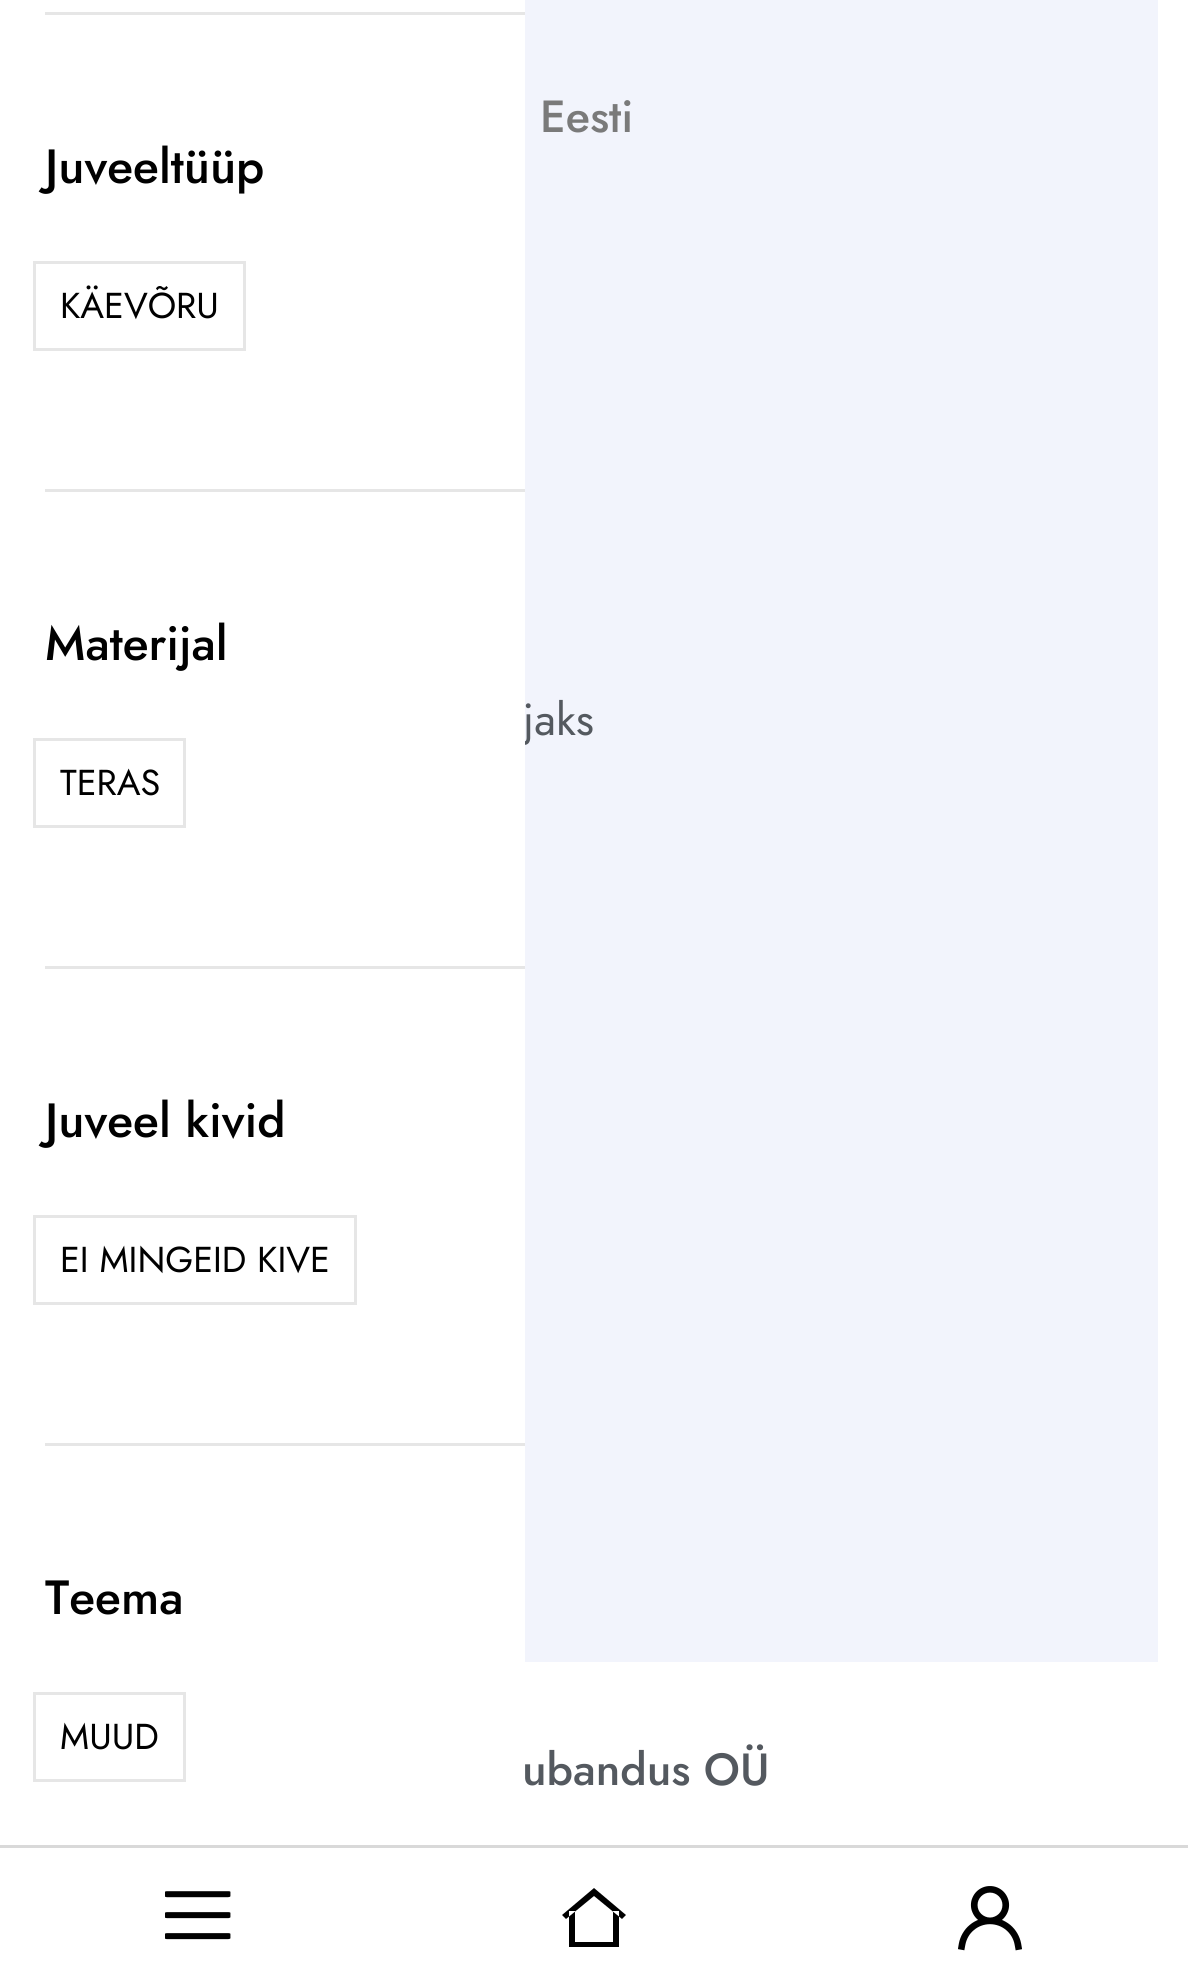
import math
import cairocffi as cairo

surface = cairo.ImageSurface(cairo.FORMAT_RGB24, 1188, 1981)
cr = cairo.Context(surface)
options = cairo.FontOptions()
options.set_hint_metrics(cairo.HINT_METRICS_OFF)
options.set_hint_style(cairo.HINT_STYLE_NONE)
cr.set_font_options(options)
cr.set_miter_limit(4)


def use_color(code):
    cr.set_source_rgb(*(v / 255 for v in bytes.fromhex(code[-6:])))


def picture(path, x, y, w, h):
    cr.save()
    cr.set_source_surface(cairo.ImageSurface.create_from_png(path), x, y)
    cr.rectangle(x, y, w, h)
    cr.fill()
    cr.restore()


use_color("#ffffff")
cr.paint()
use_color("#f2f4fc")
cr.rectangle(525, 0, 633, 1662)
cr.fill()
cr.select_font_face("Jost")
cr.set_font_size(45)
use_color("#54595f")
cr.move_to(523, 735)
cr.show_text("jaks")
use_color("#ffffff")
cr.rectangle(520, 740, 5, 5)
cr.fill()
use_color("#e6e6e6")
cr.rectangle(45, 12, 480, 3)
cr.fill()
cr.select_font_face("Jost Medium")
cr.set_font_size(48)
use_color("#000000")
cr.move_to(45, 183)
cr.show_text("Juveeltüüp")
cr.rectangle(34.5, 262.5, 210, 87)
use_color("#e6e6e6")
cr.set_line_width(3)
cr.stroke()
cr.select_font_face("Jost")
cr.set_font_size(36)
use_color("#000000")
cr.move_to(60, 318)
cr.show_text("KÄEVÕRU")
use_color("#e6e6e6")
cr.rectangle(45, 489, 480, 3)
cr.fill()
cr.select_font_face("Jost Medium")
cr.set_font_size(48)
use_color("#000000")
cr.move_to(45, 660)
cr.show_text("Materijal")
cr.rectangle(34.5, 739.5, 150, 87)
use_color("#e6e6e6")
cr.stroke()
cr.select_font_face("Jost")
cr.set_font_size(36)
use_color("#000000")
cr.move_to(60, 795)
cr.show_text("TERAS")
use_color("#e6e6e6")
cr.rectangle(45, 966, 480, 3)
cr.fill()
cr.select_font_face("Jost Medium")
cr.set_font_size(48)
use_color("#000000")
cr.move_to(45, 1137)
cr.show_text("Juveel kivid")
cr.rectangle(34.5, 1216.5, 321, 87)
use_color("#e6e6e6")
cr.stroke()
cr.select_font_face("Jost")
cr.set_font_size(36)
use_color("#000000")
cr.move_to(60, 1272)
cr.show_text("EI MINGEID KIVE")
use_color("#e6e6e6")
cr.rectangle(45, 1443, 480, 3)
cr.fill()
cr.select_font_face("Jost Medium")
cr.set_font_size(48)
use_color("#000000")
cr.move_to(45, 1614)
cr.show_text("Teema")
cr.rectangle(34.5, 1693.5, 150, 87)
use_color("#e6e6e6")
cr.stroke()
cr.select_font_face("Jost")
cr.set_font_size(36)
use_color("#000000")
cr.move_to(60, 1749)
cr.show_text("MUUD")
cr.select_font_face("Jost Medium")
cr.set_font_size(45)
use_color("#7a7a7a")
cr.move_to(540, 132)
cr.show_text("Eesti")
use_color("#54595f")
cr.move_to(522, 1785)
cr.show_text("ubandus OÜ")
use_color("#d9d9d9")
cr.rectangle(0, 1845, 1188, 3)
cr.fill()
picture("img1.png", 165, 1891, 66, 49)
use_color("#000000")
cr.new_path()
cr.move_to(575, 1942)
cr.line_to(575, 1911)
cr.line_to(569, 1911)
cr.line_to(569, 1947)
cr.line_to(619, 1947)
cr.line_to(619, 1911)
cr.line_to(613, 1911)
cr.line_to(613, 1942)
cr.close_path()
cr.move_to(594, 1888)
cr.line_to(626, 1915)
cr.line_to(622, 1919)
cr.line_to(594, 1896)
cr.line_to(566, 1919)
cr.line_to(562, 1915)
cr.close_path()
cr.fill()
picture("img2.png", 958, 1886, 64, 65)
surface.write_to_png("result.png")
